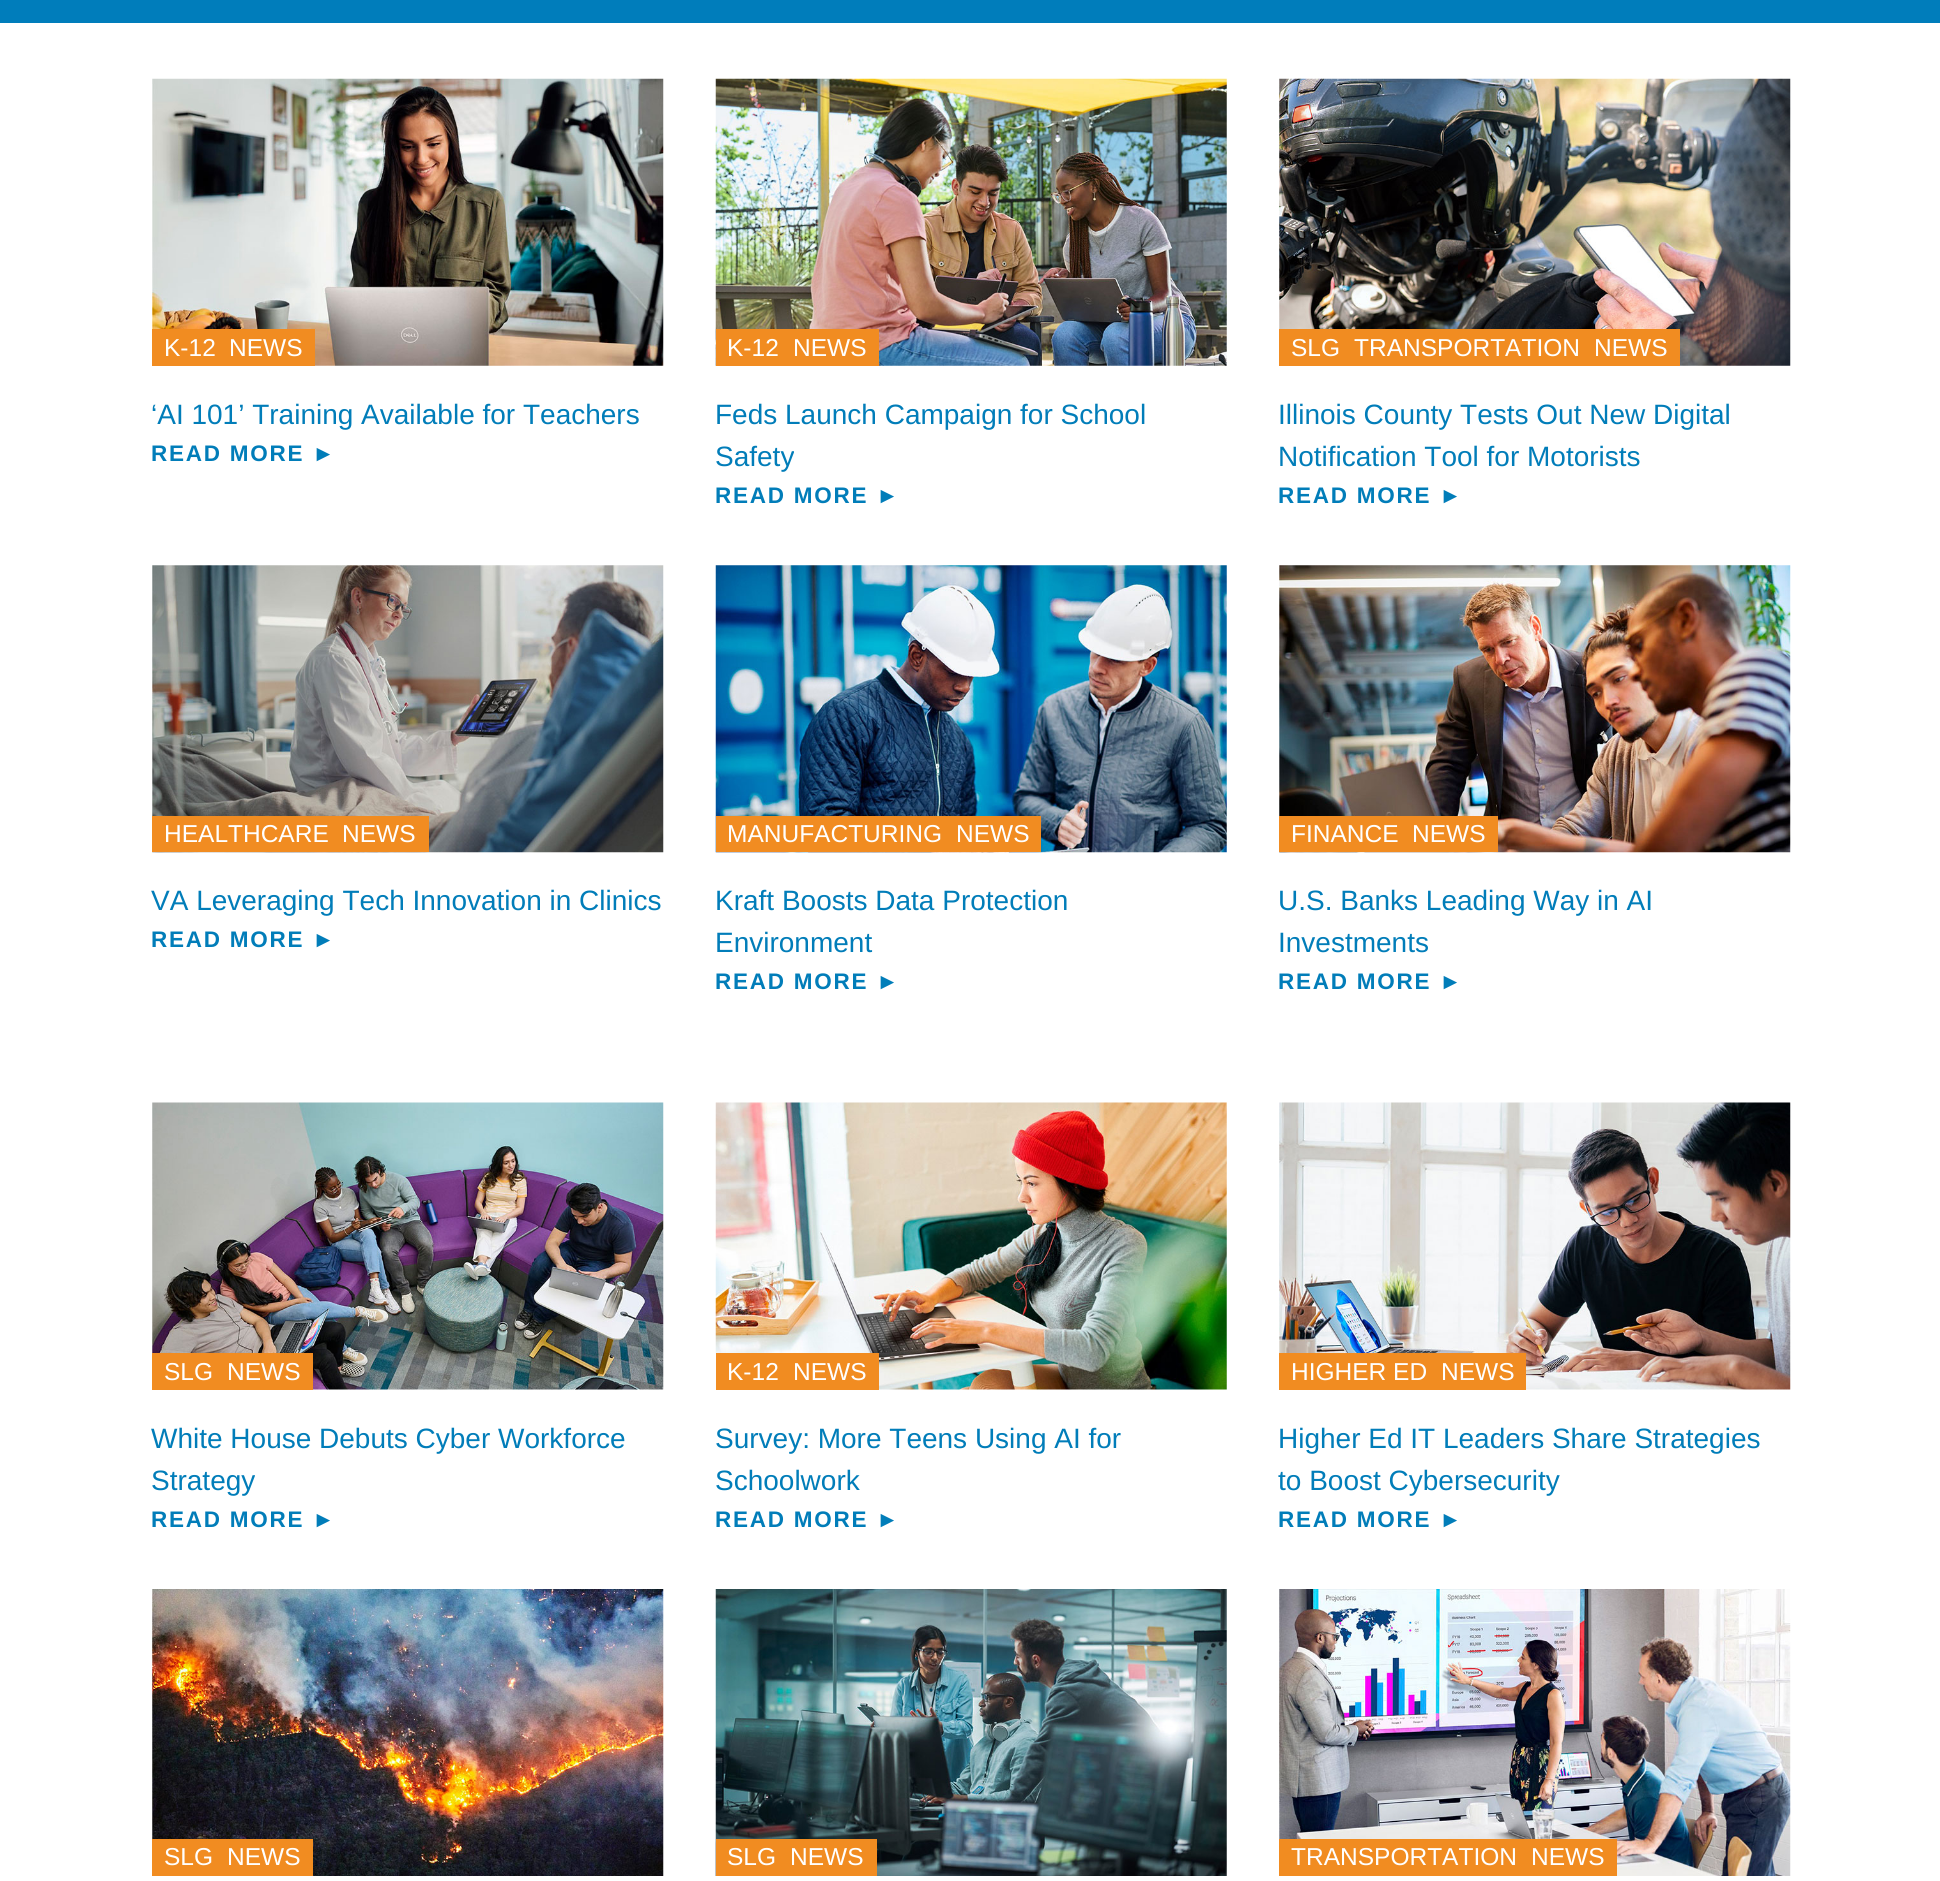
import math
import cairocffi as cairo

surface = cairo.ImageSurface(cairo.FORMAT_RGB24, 1940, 1881)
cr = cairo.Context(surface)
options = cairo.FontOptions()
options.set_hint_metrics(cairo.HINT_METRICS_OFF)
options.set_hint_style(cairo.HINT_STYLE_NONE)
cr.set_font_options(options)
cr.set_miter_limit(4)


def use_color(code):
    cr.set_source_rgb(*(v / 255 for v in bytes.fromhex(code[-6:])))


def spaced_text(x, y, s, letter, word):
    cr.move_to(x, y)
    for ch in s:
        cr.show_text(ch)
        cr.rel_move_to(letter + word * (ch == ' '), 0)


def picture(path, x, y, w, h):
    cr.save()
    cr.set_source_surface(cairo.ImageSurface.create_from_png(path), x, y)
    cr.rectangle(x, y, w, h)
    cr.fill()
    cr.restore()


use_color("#ffffff")
cr.paint()
use_color("#007dbb")
cr.rectangle(0, 0, 1940, 23)
cr.fill()
picture("img1.png", 152, 78, 512, 288)
use_color("#f18c21")
cr.rectangle(152, 329, 163, 37)
cr.fill()
cr.select_font_face("Liberation Sans")
cr.set_font_size(24.5)
use_color("#ffffff")
cr.move_to(164, 356)
cr.show_text("K-12")
cr.move_to(229, 356)
cr.show_text("NEWS")
cr.set_font_size(28)
use_color("#017db9")
cr.move_to(151, 424)
cr.show_text("‘AI 101’ Training Available for Teachers")
cr.select_font_face("Liberation Sans", cairo.FONT_SLANT_NORMAL, cairo.FONT_WEIGHT_BOLD)
cr.set_font_size(22.5)
spaced_text(151, 461, "READ MORE ►", 1.75, 0)
picture("img2.png", 715, 78, 512, 288)
use_color("#f18c21")
cr.rectangle(716, 329, 163, 37)
cr.fill()
cr.select_font_face("Liberation Sans")
cr.set_font_size(24.5)
use_color("#ffffff")
cr.move_to(727, 356)
cr.show_text("K-12")
cr.move_to(793, 356)
cr.show_text("NEWS")
cr.set_font_size(28)
use_color("#017db9")
cr.move_to(715, 424)
cr.show_text("Feds Launch Campaign for School")
cr.move_to(715, 466)
cr.show_text("Safety")
cr.select_font_face("Liberation Sans", cairo.FONT_SLANT_NORMAL, cairo.FONT_WEIGHT_BOLD)
cr.set_font_size(22.5)
spaced_text(715, 503, "READ MORE ►", 1.75, 0)
picture("img3.png", 1279, 78, 512, 288)
use_color("#f18c21")
cr.rectangle(1279, 329, 401, 37)
cr.fill()
cr.select_font_face("Liberation Sans")
cr.set_font_size(24.5)
use_color("#ffffff")
cr.move_to(1291, 356)
cr.show_text("SLG")
cr.move_to(1354, 356)
cr.show_text("TRANSPORTATION")
cr.move_to(1594, 356)
cr.show_text("NEWS")
cr.set_font_size(28)
use_color("#017db9")
cr.move_to(1278, 424)
cr.show_text("Illinois County Tests Out New Digital")
cr.move_to(1278, 466)
cr.show_text("Notification Tool for Motorists")
cr.select_font_face("Liberation Sans", cairo.FONT_SLANT_NORMAL, cairo.FONT_WEIGHT_BOLD)
cr.set_font_size(22.5)
spaced_text(1278, 503, "READ MORE ►", 1.75, 0)
picture("img4.png", 152, 565, 512, 288)
use_color("#f18c21")
cr.rectangle(152, 816, 277, 36)
cr.fill()
cr.select_font_face("Liberation Sans")
cr.set_font_size(24.5)
use_color("#ffffff")
cr.move_to(164, 842)
cr.show_text("HEALTHCARE")
cr.move_to(342, 842)
cr.show_text("NEWS")
cr.set_font_size(28)
use_color("#017db9")
cr.move_to(151, 910)
cr.show_text("VA Leveraging Tech Innovation in Clinics")
cr.select_font_face("Liberation Sans", cairo.FONT_SLANT_NORMAL, cairo.FONT_WEIGHT_BOLD)
cr.set_font_size(22.5)
spaced_text(151, 947, "READ MORE ►", 1.75, 0)
picture("img5.png", 715, 565, 512, 288)
use_color("#f18c21")
cr.rectangle(716, 816, 325, 36)
cr.fill()
cr.select_font_face("Liberation Sans")
cr.set_font_size(24.5)
use_color("#ffffff")
cr.move_to(727, 842)
cr.show_text("MANUFACTURING")
cr.move_to(956, 842)
cr.show_text("NEWS")
cr.set_font_size(28)
use_color("#017db9")
cr.move_to(715, 910)
cr.show_text("Kraft Boosts Data Protection")
cr.move_to(715, 952)
cr.show_text("Environment")
cr.select_font_face("Liberation Sans", cairo.FONT_SLANT_NORMAL, cairo.FONT_WEIGHT_BOLD)
cr.set_font_size(22.5)
spaced_text(715, 989, "READ MORE ►", 1.75, 0)
picture("img6.png", 1279, 565, 512, 288)
use_color("#f18c21")
cr.rectangle(1279, 816, 219, 36)
cr.fill()
cr.select_font_face("Liberation Sans")
cr.set_font_size(24.5)
use_color("#ffffff")
cr.move_to(1291, 842)
cr.show_text("FINANCE")
cr.move_to(1412, 842)
cr.show_text("NEWS")
cr.set_font_size(28)
use_color("#017db9")
cr.move_to(1278, 910)
cr.show_text("U.S. Banks Leading Way in AI")
cr.move_to(1278, 952)
cr.show_text("Investments")
cr.select_font_face("Liberation Sans", cairo.FONT_SLANT_NORMAL, cairo.FONT_WEIGHT_BOLD)
cr.set_font_size(22.5)
spaced_text(1278, 989, "READ MORE ►", 1.75, 0)
picture("img7.png", 152, 1102, 512, 288)
use_color("#f18c21")
cr.rectangle(152, 1353, 161, 37)
cr.fill()
cr.select_font_face("Liberation Sans")
cr.set_font_size(24.5)
use_color("#ffffff")
cr.move_to(164, 1380)
cr.show_text("SLG")
cr.move_to(227, 1380)
cr.show_text("NEWS")
cr.set_font_size(28)
use_color("#017db9")
cr.move_to(151, 1448)
cr.show_text("White House Debuts Cyber Workforce")
cr.move_to(151, 1490)
cr.show_text("Strategy")
cr.select_font_face("Liberation Sans", cairo.FONT_SLANT_NORMAL, cairo.FONT_WEIGHT_BOLD)
cr.set_font_size(22.5)
spaced_text(151, 1527, "READ MORE ►", 1.75, 0)
picture("img8.png", 715, 1102, 512, 288)
use_color("#f18c21")
cr.rectangle(716, 1353, 163, 37)
cr.fill()
cr.select_font_face("Liberation Sans")
cr.set_font_size(24.5)
use_color("#ffffff")
cr.move_to(727, 1380)
cr.show_text("K-12")
cr.move_to(793, 1380)
cr.show_text("NEWS")
cr.set_font_size(28)
use_color("#017db9")
cr.move_to(715, 1448)
cr.show_text("Survey: More Teens Using AI for")
cr.move_to(715, 1490)
cr.show_text("Schoolwork")
cr.select_font_face("Liberation Sans", cairo.FONT_SLANT_NORMAL, cairo.FONT_WEIGHT_BOLD)
cr.set_font_size(22.5)
spaced_text(715, 1527, "READ MORE ►", 1.75, 0)
picture("img9.png", 1279, 1102, 512, 288)
use_color("#f18c21")
cr.rectangle(1279, 1353, 247, 37)
cr.fill()
cr.select_font_face("Liberation Sans")
cr.set_font_size(24.5)
use_color("#ffffff")
cr.move_to(1291, 1380)
cr.show_text("HIGHER ED")
cr.move_to(1441, 1380)
cr.show_text("NEWS")
cr.set_font_size(28)
use_color("#017db9")
cr.move_to(1278, 1448)
cr.show_text("Higher Ed IT Leaders Share Strategies")
cr.move_to(1278, 1490)
cr.show_text("to Boost Cybersecurity")
cr.select_font_face("Liberation Sans", cairo.FONT_SLANT_NORMAL, cairo.FONT_WEIGHT_BOLD)
cr.set_font_size(22.5)
spaced_text(1278, 1527, "READ MORE ►", 1.75, 0)
picture("img10.png", 152, 1589, 512, 287)
use_color("#f18c21")
cr.rectangle(152, 1839, 161, 37)
cr.fill()
cr.select_font_face("Liberation Sans")
cr.set_font_size(24.5)
use_color("#ffffff")
cr.move_to(164, 1865)
cr.show_text("SLG")
cr.move_to(227, 1865)
cr.show_text("NEWS")
picture("img11.png", 715, 1589, 512, 287)
use_color("#f18c21")
cr.rectangle(716, 1839, 161, 37)
cr.fill()
use_color("#ffffff")
cr.move_to(727, 1865)
cr.show_text("SLG")
cr.move_to(790, 1865)
cr.show_text("NEWS")
picture("img12.png", 1279, 1589, 512, 287)
use_color("#f18c21")
cr.rectangle(1279, 1839, 338, 37)
cr.fill()
use_color("#ffffff")
cr.move_to(1291, 1865)
cr.show_text("TRANSPORTATION")
cr.move_to(1531, 1865)
cr.show_text("NEWS")
surface.write_to_png("result.png")
